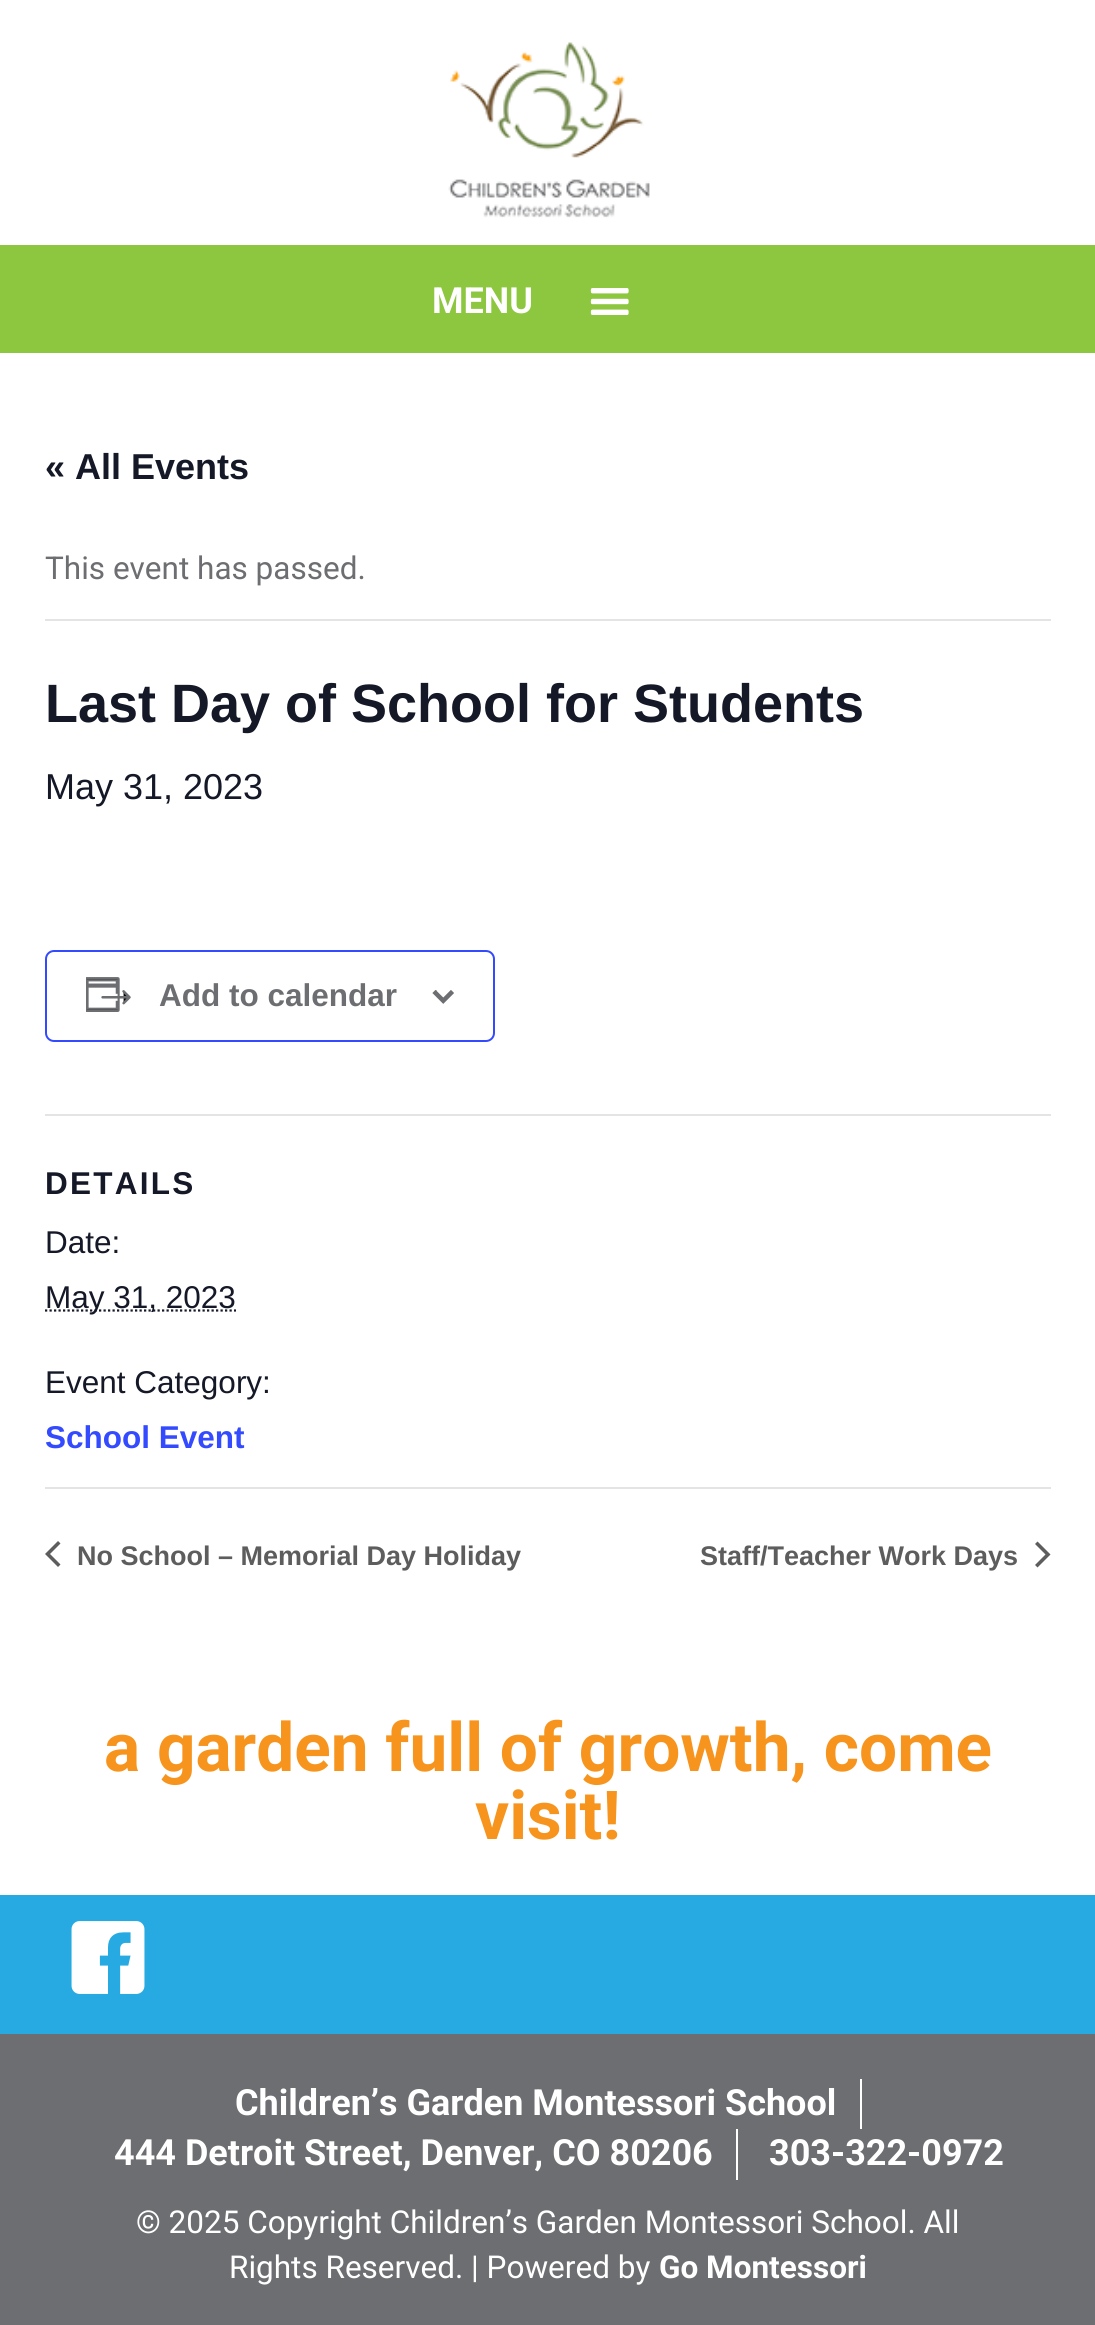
import math
import cairocffi as cairo

surface = cairo.ImageSurface(cairo.FORMAT_RGB24, 1095, 2325)
cr = cairo.Context(surface)
options = cairo.FontOptions()
options.set_hint_metrics(cairo.HINT_METRICS_OFF)
options.set_hint_style(cairo.HINT_STYLE_NONE)
cr.set_font_options(options)
cr.set_miter_limit(4)


def use_color(code):
    cr.set_source_rgb(*(v / 255 for v in bytes.fromhex(code[-6:])))


def spaced_text(x, y, s, letter, word):
    cr.move_to(x, y)
    for ch in s:
        cr.show_text(ch)
        cr.rel_move_to(letter + word * (ch == ' '), 0)


def round_rect(x, y, w, h, r):
    cr.new_sub_path()
    for i, (u, v) in enumerate([(x + w - r, y + h - r), (x + r, y + h - r), (x + r, y + r), (x + w - r, y + r)]):
        cr.arc(u, v, r, i * math.pi / 2, (i + 1) * math.pi / 2)
    cr.close_path()


def picture(path, x, y, w, h):
    cr.save()
    cr.set_source_surface(cairo.ImageSurface.create_from_png(path), x, y)
    cr.rectangle(x, y, w, h)
    cr.fill()
    cr.restore()


use_color("#ffffff")
cr.paint()
use_color("#8dc63f")
cr.rectangle(0, 245, 1095, 108)
cr.fill()
picture("img1.png", 448, 42, 202, 176)
cr.select_font_face("Roboto", cairo.FONT_SLANT_NORMAL, cairo.FONT_WEIGHT_BOLD)
cr.set_font_size(36)
use_color("#ffffff")
cr.move_to(432, 313)
cr.show_text("MENU")
picture("img2.png", 590, 288, 39, 27)
cr.select_font_face("Liberation Sans", cairo.FONT_SLANT_NORMAL, cairo.FONT_WEIGHT_BOLD)
use_color("#141827")
cr.move_to(45, 479)
cr.show_text("« All Events")
use_color("#e4e4e4")
cr.rectangle(45, 619, 1006, 2)
cr.fill()
cr.select_font_face("Roboto")
cr.set_font_size(31.5)
use_color("#6d6e71")
cr.move_to(45, 579)
cr.show_text("This event has passed.")
cr.select_font_face("Liberation Sans", cairo.FONT_SLANT_NORMAL, cairo.FONT_WEIGHT_BOLD)
cr.set_font_size(54)
use_color("#141827")
cr.move_to(45, 722)
cr.show_text("Last Day of School for Students")
cr.select_font_face("Liberation Sans")
cr.set_font_size(36)
cr.move_to(45, 799)
cr.show_text("May 31, 2023")
round_rect(46, 951, 448, 90, 8)
use_color("#334aff")
cr.stroke()
picture("img3.png", 86, 977, 45, 35)
cr.select_font_face("Liberation Sans", cairo.FONT_SLANT_NORMAL, cairo.FONT_WEIGHT_BOLD)
cr.set_font_size(31.5)
use_color("#6d6e71")
cr.move_to(159, 1006)
cr.show_text("Add to calendar")
picture("img4.png", 432, 990, 22, 14)
use_color("#e4e4e4")
cr.rectangle(45, 1114, 1006, 2)
cr.fill()
use_color("#141827")
spaced_text(45, 1194, "DETAILS", 2.25, 0)
cr.select_font_face("Liberation Sans")
cr.move_to(45, 1253)
cr.show_text("Date:")
cr.new_path()
cr.move_to(45, 1310.5)
cr.line_to(236, 1310.5)
cr.set_line_width(2.2)
cr.set_dash([2.25, 2.25])
cr.stroke()
cr.move_to(45, 1308)
cr.show_text("May 31, 2023")
cr.move_to(45, 1393)
cr.show_text("Event Category:")
cr.select_font_face("Liberation Sans", cairo.FONT_SLANT_NORMAL, cairo.FONT_WEIGHT_BOLD)
use_color("#334aff")
cr.move_to(45, 1448)
cr.show_text("School Event")
use_color("#e4e4e4")
cr.rectangle(45, 1487, 1006, 2)
cr.fill()
use_color("#5d5d5d")
cr.new_path()
cr.move_to(60.5, 1564.5)
cr.line_to(58, 1567)
cr.line_to(45, 1554)
cr.line_to(58, 1541)
cr.line_to(60.5, 1543.5)
cr.line_to(50, 1554)
cr.close_path()
cr.fill()
cr.set_font_size(27)
cr.move_to(77, 1565)
cr.show_text("No School – Memorial Day Holiday")
cr.move_to(700, 1565)
cr.show_text("Staff/Teacher Work Days")
cr.new_path()
cr.move_to(1035, 1544)
cr.line_to(1037.5, 1541.5)
cr.line_to(1050.5, 1554.5)
cr.line_to(1037.5, 1567.5)
cr.line_to(1035, 1565)
cr.line_to(1045.5, 1554.5)
cr.close_path()
cr.fill()
cr.select_font_face("Roboto", cairo.FONT_SLANT_NORMAL, cairo.FONT_WEIGHT_BOLD)
cr.set_font_size(67.5)
use_color("#f7941e")
cr.move_to(104, 1771)
cr.show_text("a garden full of growth, come")
cr.move_to(475, 1839)
cr.show_text("visit!")
use_color("#27aae1")
cr.rectangle(0, 1895, 1095, 139)
cr.fill()
picture("img5.png", 71, 1921, 74, 73)
use_color("#6d6e71")
cr.rectangle(0, 2034, 1095, 291)
cr.fill()
use_color("#ffffff")
cr.rectangle(860, 2079, 2, 50)
cr.fill()
cr.set_font_size(36)
cr.move_to(235, 2115)
cr.show_text("Children’s Garden Montessori School")
cr.rectangle(736, 2129, 2, 51)
cr.fill()
cr.move_to(114, 2165)
cr.show_text("444 Detroit Street, Denver, CO 80206")
cr.move_to(769, 2165)
cr.show_text("303-322-0972")
cr.select_font_face("Roboto")
cr.set_font_size(31.5)
cr.move_to(136, 2233)
cr.show_text("© 2025 Copyright Children’s Garden Montessori School. All")
cr.move_to(229, 2278)
cr.show_text("Rights Reserved. | Powered by")
cr.select_font_face("Roboto", cairo.FONT_SLANT_NORMAL, cairo.FONT_WEIGHT_BOLD)
cr.move_to(659, 2278)
cr.show_text("Go Montessori")
surface.write_to_png("result.png")
